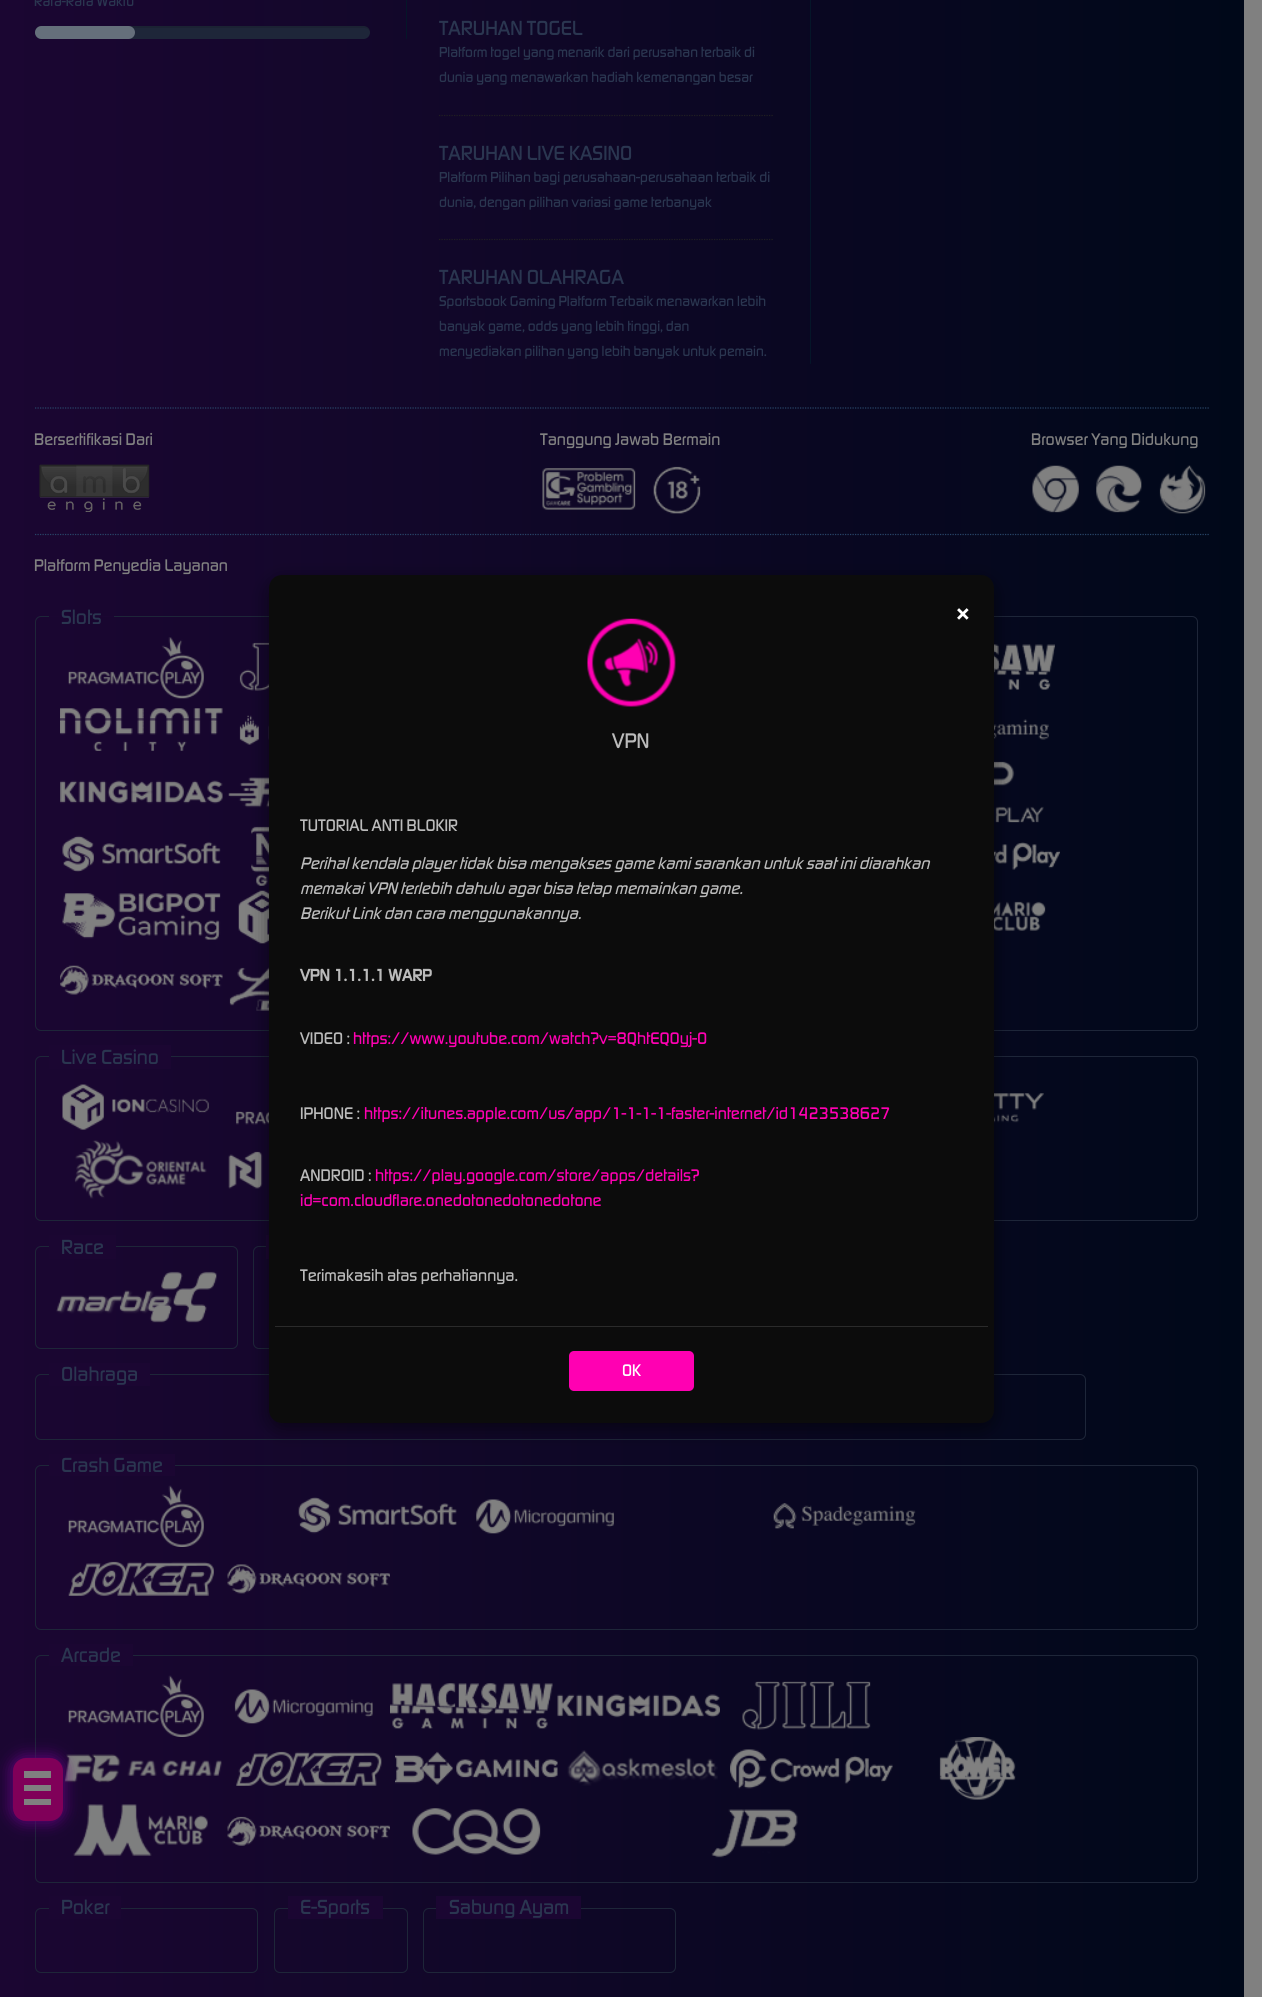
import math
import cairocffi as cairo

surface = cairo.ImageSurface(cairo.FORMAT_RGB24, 1262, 1997)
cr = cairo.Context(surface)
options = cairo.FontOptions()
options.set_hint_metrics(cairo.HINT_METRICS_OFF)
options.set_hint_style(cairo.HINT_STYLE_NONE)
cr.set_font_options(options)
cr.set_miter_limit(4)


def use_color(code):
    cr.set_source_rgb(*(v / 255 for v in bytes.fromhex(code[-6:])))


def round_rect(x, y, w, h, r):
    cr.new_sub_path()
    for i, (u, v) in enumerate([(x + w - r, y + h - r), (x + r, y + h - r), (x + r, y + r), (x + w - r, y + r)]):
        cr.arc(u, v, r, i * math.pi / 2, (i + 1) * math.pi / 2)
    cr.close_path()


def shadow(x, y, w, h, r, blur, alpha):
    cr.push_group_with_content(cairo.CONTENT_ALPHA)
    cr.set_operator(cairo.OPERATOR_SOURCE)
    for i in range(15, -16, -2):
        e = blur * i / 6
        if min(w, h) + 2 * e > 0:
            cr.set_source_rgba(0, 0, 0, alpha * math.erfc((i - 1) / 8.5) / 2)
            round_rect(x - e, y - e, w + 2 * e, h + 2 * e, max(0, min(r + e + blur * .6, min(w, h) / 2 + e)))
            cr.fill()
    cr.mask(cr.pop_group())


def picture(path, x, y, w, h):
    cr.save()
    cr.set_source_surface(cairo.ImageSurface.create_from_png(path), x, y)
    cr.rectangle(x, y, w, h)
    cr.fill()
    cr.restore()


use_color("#808080")
cr.paint()
gradient = cairo.LinearGradient(0, 681, 1244, 681)
gradient.add_color_stop_rgba(0, 0.106, 0.024, 0.196, 1)
gradient.add_color_stop_rgba(1, 0, 0.031, 0.098, 1)
cr.set_source(gradient)
cr.rectangle(0, 0, 1244, 1997)
cr.fill()
cr.select_font_face("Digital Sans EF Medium")
cr.set_font_size(15)
use_color("#2a3650")
cr.move_to(34, 6)
cr.show_text("Rata-Rata Waktu")
use_color("#1e2639")
round_rect(35, 26, 335, 13, 6.5)
cr.fill()
cr.set_source_rgba(0, 0, 0, 0.1)
cr.new_path()
cr.move_to(41, 28)
cr.line_to(364, 28)
cr.curve_to(367, 28, 370, 30, 370, 33)
cr.curve_to(370, 29, 367, 26, 364, 26)
cr.line_to(40, 26)
cr.curve_to(39, 26, 37, 27, 36, 29)
cr.curve_to(35, 30, 35, 32, 35, 33)
cr.curve_to(35, 30, 38, 28, 41, 28)
cr.close_path()
cr.fill()
use_color("#656f7b")
round_rect(35, 26, 100, 13, 6.5)
cr.fill()
use_color("#051629")
round_rect(406, -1, 1, 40, 0.5)
cr.fill()
cr.set_font_size(21.25)
use_color("#2a3650")
cr.move_to(439, 35)
cr.show_text("TARUHAN TOGEL")
cr.set_font_size(15)
cr.move_to(439, 57)
cr.show_text("Platform togel yang menarik dari perusahan terbaik di")
cr.move_to(439, 82)
cr.show_text("dunia yang menawarkan hadiah kemenangan besar")
cr.new_path()
cr.move_to(439, 115.5)
cr.line_to(774, 115.5)
use_color("#201f21")
cr.set_line_width(1.2)
cr.set_dash([1.25, 1.25])
cr.stroke()
cr.set_font_size(21.25)
use_color("#2a3650")
cr.move_to(439, 160)
cr.show_text("TARUHAN LIVE KASINO")
cr.set_font_size(15)
cr.move_to(439, 182)
cr.show_text("Platform Pilihan bagi perusahaan-perusahaan terbaik di")
cr.move_to(439, 207)
cr.show_text("dunia, dengan pilihan variasi game terbanyak")
cr.new_path()
cr.move_to(439, 239.5)
cr.line_to(774, 239.5)
use_color("#201f21")
cr.stroke()
cr.set_font_size(21.25)
use_color("#2a3650")
cr.move_to(439, 284)
cr.show_text("TARUHAN OLAHRAGA")
cr.set_font_size(15)
cr.move_to(439, 306)
cr.show_text("Sportsbook Gaming Platform Terbaik menawarkan lebih")
cr.move_to(439, 331)
cr.show_text("banyak game, odds yang lebih tinggi, dan")
cr.move_to(439, 356)
cr.show_text("menyediakan pilihan yang lebih banyak untuk pemain.")
use_color("#051629")
round_rect(810, -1, 1, 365, 0.5)
cr.fill()
cr.new_path()
cr.move_to(35, 408)
cr.line_to(1210, 408)
use_color("#284568")
cr.stroke()
cr.set_font_size(17.5)
use_color("#808080")
cr.move_to(34, 445)
cr.show_text("Bersertifikasi Dari")
picture("img1.png", 39, 464, 111, 48)
cr.move_to(540, 445)
cr.show_text("Tanggung Jawab Bermain")
picture("img2.png", 542, 468, 94, 42)
picture("img3.png", 653, 466, 48, 48)
cr.move_to(1031, 445)
cr.show_text("Browser Yang Didukung")
picture("img4.png", 1032, 465, 47, 48)
picture("img5.png", 1096, 465, 46, 48)
picture("img6.png", 1159, 465, 47, 49)
cr.new_path()
cr.move_to(35, 534.5)
cr.line_to(1210, 534.5)
use_color("#284568")
cr.stroke()
use_color("#808080")
cr.move_to(34, 571)
cr.show_text("Platform Penyedia Layanan")
round_rect(35.5, 616.5, 1162, 414, 5.5)
use_color("#1e2639")
cr.set_line_width(1)
cr.set_dash([])
cr.stroke()
use_color("#1b0632")
cr.rectangle(49, 616, 65, 1)
cr.fill()
cr.set_font_size(21.25)
use_color("#2a3650")
cr.move_to(61, 624)
cr.show_text("Slots")
picture("img7.png", 68, 637, 136, 62)
picture("img8.png", 239, 642, 30, 49)
picture("img9.png", 994, 644, 61, 46)
picture("img10.png", 60, 708, 163, 43)
picture("img11.png", 239, 715, 30, 30)
picture("img12.png", 994, 719, 55, 21)
picture("img13.png", 60, 780, 163, 24)
picture("img14.png", 228, 777, 41, 31)
picture("img15.png", 994, 761, 50, 62)
picture("img16.png", 62, 835, 159, 37)
picture("img17.png", 251, 826, 18, 60)
picture("img18.png", 994, 842, 66, 28)
picture("img19.png", 62, 893, 159, 47)
picture("img20.png", 238, 890, 31, 54)
picture("img21.png", 994, 901, 52, 30)
picture("img22.png", 60, 965, 163, 30)
picture("img23.png", 229, 967, 40, 44)
round_rect(35.5, 1056.5, 1162, 164, 5.5)
use_color("#1e2639")
cr.stroke()
use_color("#1b0632")
cr.rectangle(49, 1045, 122, 24)
cr.fill()
use_color("#2a3650")
cr.move_to(61, 1064)
cr.show_text("Live Casino")
picture("img24.png", 62, 1084, 147, 46)
picture("img25.png", 236, 1111, 33, 14)
picture("img26.png", 994, 1093, 50, 30)
picture("img27.png", 74, 1140, 133, 59)
picture("img28.png", 228, 1151, 35, 38)
round_rect(35.5, 1246.5, 202, 102, 5.5)
use_color("#1e2639")
cr.stroke()
use_color("#1b0632")
cr.rectangle(49, 1235, 67, 24)
cr.fill()
use_color("#2a3650")
cr.move_to(61, 1254)
cr.show_text("Race")
picture("img29.png", 56, 1271, 161, 52)
round_rect(253.5, 1246.5, 201, 102, 5.5)
use_color("#1e2639")
cr.stroke()
use_color("#1b0632")
cr.rectangle(266, 1235, 3, 24)
cr.fill()
round_rect(35.5, 1374.5, 1050, 65, 5.5)
use_color("#1e2639")
cr.stroke()
use_color("#1b0632")
cr.rectangle(49, 1363, 101, 23)
cr.fill()
use_color("#2a3650")
cr.move_to(61, 1381)
cr.show_text("Olahraga")
round_rect(35.5, 1465.5, 1162, 164, 5.5)
use_color("#1e2639")
cr.stroke()
use_color("#1b0632")
cr.rectangle(49, 1454, 126, 22)
cr.fill()
use_color("#2a3650")
cr.move_to(61, 1472)
cr.show_text("Crash Game")
picture("img30.png", 68, 1485, 136, 62)
picture("img31.png", 298, 1497, 159, 37)
picture("img32.png", 476, 1499, 138, 35)
picture("img33.png", 773, 1503, 143, 26)
picture("img34.png", 68, 1561, 146, 35)
picture("img35.png", 227, 1564, 163, 30)
round_rect(35.5, 1655.5, 1162, 227, 5.5)
use_color("#1e2639")
cr.stroke()
use_color("#1b0632")
cr.rectangle(49, 1644, 84, 22)
cr.fill()
use_color("#2a3650")
cr.move_to(61, 1662)
cr.show_text("Arcade")
picture("img30.png", 68, 1675, 136, 62)
picture("img36.png", 234, 1689, 139, 35)
picture("img37.png", 390, 1683, 163, 46)
picture("img38.png", 557, 1694, 163, 24)
picture("img39.png", 742, 1681, 129, 49)
picture("img40.png", 64, 1754, 158, 29)
picture("img41.png", 236, 1751, 146, 35)
picture("img42.png", 395, 1751, 163, 34)
picture("img43.png", 567, 1750, 151, 36)
picture("img44.png", 730, 1749, 163, 40)
picture("img45.png", 939, 1737, 77, 63)
picture("img46.png", 73, 1804, 135, 52)
picture("img47.png", 227, 1816, 163, 30)
picture("img48.png", 412, 1808, 129, 47)
picture("img49.png", 711, 1809, 87, 49)
round_rect(35.5, 1908.5, 222, 64, 5.5)
use_color("#1e2639")
cr.stroke()
use_color("#1b0632")
cr.rectangle(49, 1896, 72, 23)
cr.fill()
use_color("#2a3650")
cr.move_to(61, 1914)
cr.show_text("Poker")
round_rect(274.5, 1908.5, 133, 64, 5.5)
use_color("#1e2639")
cr.stroke()
use_color("#1b0632")
cr.rectangle(288, 1896, 95, 23)
cr.fill()
use_color("#2a3650")
cr.move_to(300, 1914)
cr.show_text("E-Sports")
round_rect(423.5, 1908.5, 252, 64, 5.5)
use_color("#1e2639")
cr.stroke()
use_color("#1b0632")
cr.rectangle(436, 1896, 145, 23)
cr.fill()
use_color("#2a3650")
cr.move_to(449, 1914)
cr.show_text("Sabung Ayam")
use_color("#000000")
shadow(269, 581, 725, 848, 13, 9.5, 0.5)
use_color("#0c0c0c")
round_rect(272, 578, 719, 842, 10)
cr.fill_preserve()
cr.set_line_width(6)
cr.stroke()
cr.select_font_face("Digital Sans EF", cairo.FONT_SLANT_NORMAL, cairo.FONT_WEIGHT_BOLD)
cr.set_font_size(26)
use_color("#ffffff")
cr.move_to(956, 623)
cr.show_text("×")
picture("img50.png", 587, 618, 89, 89)
cr.select_font_face("Digital Sans EF Medium")
cr.set_font_size(22)
use_color("#bbbbbb")
cr.move_to(612, 748)
cr.show_text("VPN")
cr.set_font_size(17.5)
cr.move_to(300, 831)
cr.show_text("TUTORIAL ANTI BLOKIR")
cr.select_font_face("Digital Sans EF Medium", cairo.FONT_SLANT_ITALIC)
cr.move_to(300, 869)
cr.show_text("Perihal kendala player tidak bisa mengakses game kami sarankan untuk saat ini diarahkan")
cr.move_to(300, 894)
cr.show_text("memakai VPN terlebih dahulu agar bisa tetap memainkan game.")
cr.move_to(300, 919)
cr.show_text("Berikut Link dan cara menggunakannya.")
cr.select_font_face("Digital Sans EF", cairo.FONT_SLANT_NORMAL, cairo.FONT_WEIGHT_BOLD)
cr.move_to(300, 981)
cr.show_text("VPN 1.1.1.1 WARP")
cr.select_font_face("Digital Sans EF Medium")
cr.move_to(300, 1044)
cr.show_text("VIDEO :")
use_color("#ff00b2")
cr.move_to(353, 1044)
cr.show_text("https://www.youtube.com/watch?v=8QhtEQ0yj-0")
use_color("#bbbbbb")
cr.move_to(300, 1119)
cr.show_text("IPHONE :")
use_color("#ff00b2")
cr.move_to(364, 1119)
cr.show_text("https://itunes.apple.com/us/app/1-1-1-1-faster-internet/id1423538627")
use_color("#bbbbbb")
cr.move_to(300, 1181)
cr.show_text("ANDROID :")
use_color("#ff00b2")
cr.move_to(375, 1181)
cr.show_text("https://play.google.com/store/apps/details?")
cr.move_to(300, 1206)
cr.show_text("id=com.cloudflare.onedotonedotonedotone")
use_color("#bbbbbb")
cr.move_to(300, 1281)
cr.show_text("Terimakasih atas perhatiannya.")
use_color("#2b2b2b")
cr.rectangle(275, 1326, 713, 1)
cr.fill()
use_color("#ff00b2")
round_rect(569, 1351, 125, 40, 5)
cr.fill()
use_color("#ffffff")
cr.move_to(622, 1376)
cr.show_text("OK")
use_color("#5e027a")
shadow(11, 1756, 53, 67, 14, 7.5, 1)
use_color("#800059")
round_rect(13, 1758, 50, 63, 13)
cr.fill()
use_color("#808080")
cr.rectangle(24, 1771, 27, 7)
cr.fill()
cr.rectangle(24, 1785, 27, 6)
cr.fill()
cr.rectangle(24, 1799, 27, 6)
cr.fill()
surface.write_to_png("result.png")
